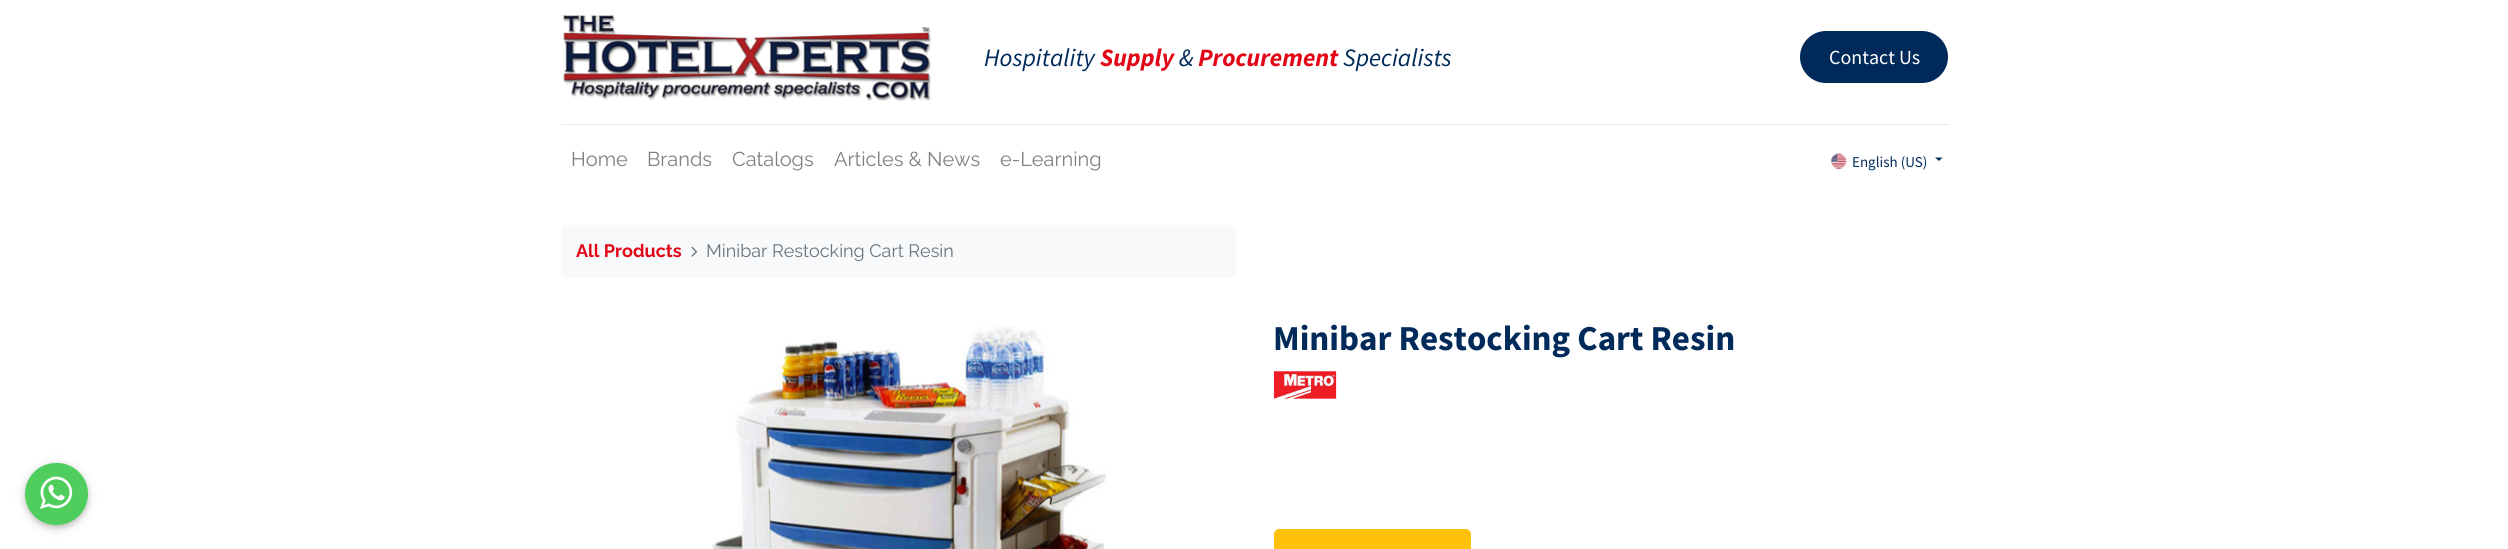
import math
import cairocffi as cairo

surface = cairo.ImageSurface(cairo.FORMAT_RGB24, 2508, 549)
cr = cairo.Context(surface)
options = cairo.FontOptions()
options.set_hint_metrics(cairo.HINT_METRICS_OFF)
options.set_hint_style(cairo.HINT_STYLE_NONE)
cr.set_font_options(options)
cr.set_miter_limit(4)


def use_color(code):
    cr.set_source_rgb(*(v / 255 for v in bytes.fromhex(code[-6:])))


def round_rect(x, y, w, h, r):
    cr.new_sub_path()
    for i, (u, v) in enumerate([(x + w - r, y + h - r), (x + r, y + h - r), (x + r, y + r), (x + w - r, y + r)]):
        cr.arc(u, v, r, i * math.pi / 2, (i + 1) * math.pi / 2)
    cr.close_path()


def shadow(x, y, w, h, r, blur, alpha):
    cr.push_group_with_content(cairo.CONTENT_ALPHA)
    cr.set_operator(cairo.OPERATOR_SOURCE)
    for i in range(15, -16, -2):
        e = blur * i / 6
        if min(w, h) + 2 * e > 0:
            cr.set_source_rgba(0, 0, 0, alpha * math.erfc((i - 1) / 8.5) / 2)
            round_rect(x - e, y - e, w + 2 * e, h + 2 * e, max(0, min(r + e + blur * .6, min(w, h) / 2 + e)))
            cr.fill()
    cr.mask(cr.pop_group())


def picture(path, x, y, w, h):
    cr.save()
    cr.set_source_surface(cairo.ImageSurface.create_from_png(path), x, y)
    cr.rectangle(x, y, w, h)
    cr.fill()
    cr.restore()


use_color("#ffffff")
cr.paint()
picture("img1.png", 563, 14, 368, 87)
cr.select_font_face("Source Sans Pro", cairo.FONT_SLANT_ITALIC)
cr.set_font_size(25)
use_color("#002a5a")
cr.move_to(984, 66)
cr.show_text("Hospitality")
cr.select_font_face("Source Sans Pro", cairo.FONT_SLANT_ITALIC, cairo.FONT_WEIGHT_BOLD)
use_color("#e20717")
cr.move_to(1100, 66)
cr.show_text("Supply")
cr.select_font_face("Source Sans Pro", cairo.FONT_SLANT_ITALIC)
use_color("#002a5a")
cr.move_to(1179, 66)
cr.show_text("&")
cr.select_font_face("Source Sans Pro", cairo.FONT_SLANT_ITALIC, cairo.FONT_WEIGHT_BOLD)
use_color("#e20717")
cr.move_to(1198, 66)
cr.show_text("Procurement")
cr.select_font_face("Source Sans Pro", cairo.FONT_SLANT_ITALIC)
use_color("#002a5a")
cr.move_to(1343, 66)
cr.show_text("Specialists")
round_rect(1800, 31, 148, 52, 26)
cr.fill()
cr.select_font_face("Source Sans Pro")
cr.set_font_size(20)
use_color("#ffffff")
cr.move_to(1829, 64)
cr.show_text("Contact Us")
use_color("#e9ecef")
cr.rectangle(561, 124, 1388, 1)
cr.fill()
cr.select_font_face("Raleway")
use_color("#808080")
cr.move_to(571, 166)
cr.show_text("Home")
cr.move_to(647, 166)
cr.show_text("Brands")
cr.move_to(732, 166)
cr.show_text("Catalogs")
cr.move_to(834, 166)
cr.show_text("Articles & News")
cr.move_to(1000, 166)
cr.show_text("e-Learning")
picture("img2.png", 1831, 153, 16, 16)
cr.select_font_face("Source Sans Pro")
cr.set_font_size(15)
use_color("#002a5a")
cr.move_to(1852, 167)
cr.show_text("English (US)")
cr.new_path()
cr.move_to(1935, 157.5)
cr.line_to(1942.5, 157.5)
cr.line_to(1939, 161)
cr.close_path()
cr.fill()
use_color("#f8f9fa")
round_rect(561, 225, 675, 53, 5)
cr.fill()
cr.select_font_face("Raleway", cairo.FONT_SLANT_NORMAL, cairo.FONT_WEIGHT_BOLD)
cr.set_font_size(18)
use_color("#e20717")
cr.move_to(576, 257)
cr.show_text("All Products")
picture("img3.png", 691, 246, 7, 11)
cr.select_font_face("Raleway")
use_color("#6c757d")
cr.move_to(706, 257)
cr.show_text("Minibar Restocking Cart Resin")
picture("img4.png", 712, 326, 395, 223)
cr.select_font_face("Source Sans Pro", cairo.FONT_SLANT_NORMAL, cairo.FONT_WEIGHT_BOLD)
cr.set_font_size(35)
use_color("#002a5a")
cr.move_to(1273, 350)
cr.show_text("Minibar Restocking Cart Resin")
picture("img5.png", 1273, 371, 64, 28)
use_color("#ffc107")
cr.new_path()
cr.move_to(1280, 529)
cr.line_to(1465, 529)
cr.curve_to(1468.5, 529, 1471, 531.5, 1471, 535)
cr.line_to(1471, 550)
cr.line_to(1274, 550)
cr.line_to(1274, 535)
cr.curve_to(1274, 531.5, 1276.5, 529, 1280, 529)
cr.close_path()
cr.fill()
round_rect(1274.5, 529.5, 196, 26, 5.5)
cr.set_line_width(1)
cr.stroke()
use_color("#000000")
shadow(25, 465, 63, 63, 31.5, 6, 0.12)
shadow(25, 465, 63, 63, 31.5, 2.5, 0.16)
use_color("#4fce5d")
round_rect(25, 463, 63, 62, 31)
cr.fill()
picture("img6.png", 40, 476, 33, 33)
surface.write_to_png("result.png")
